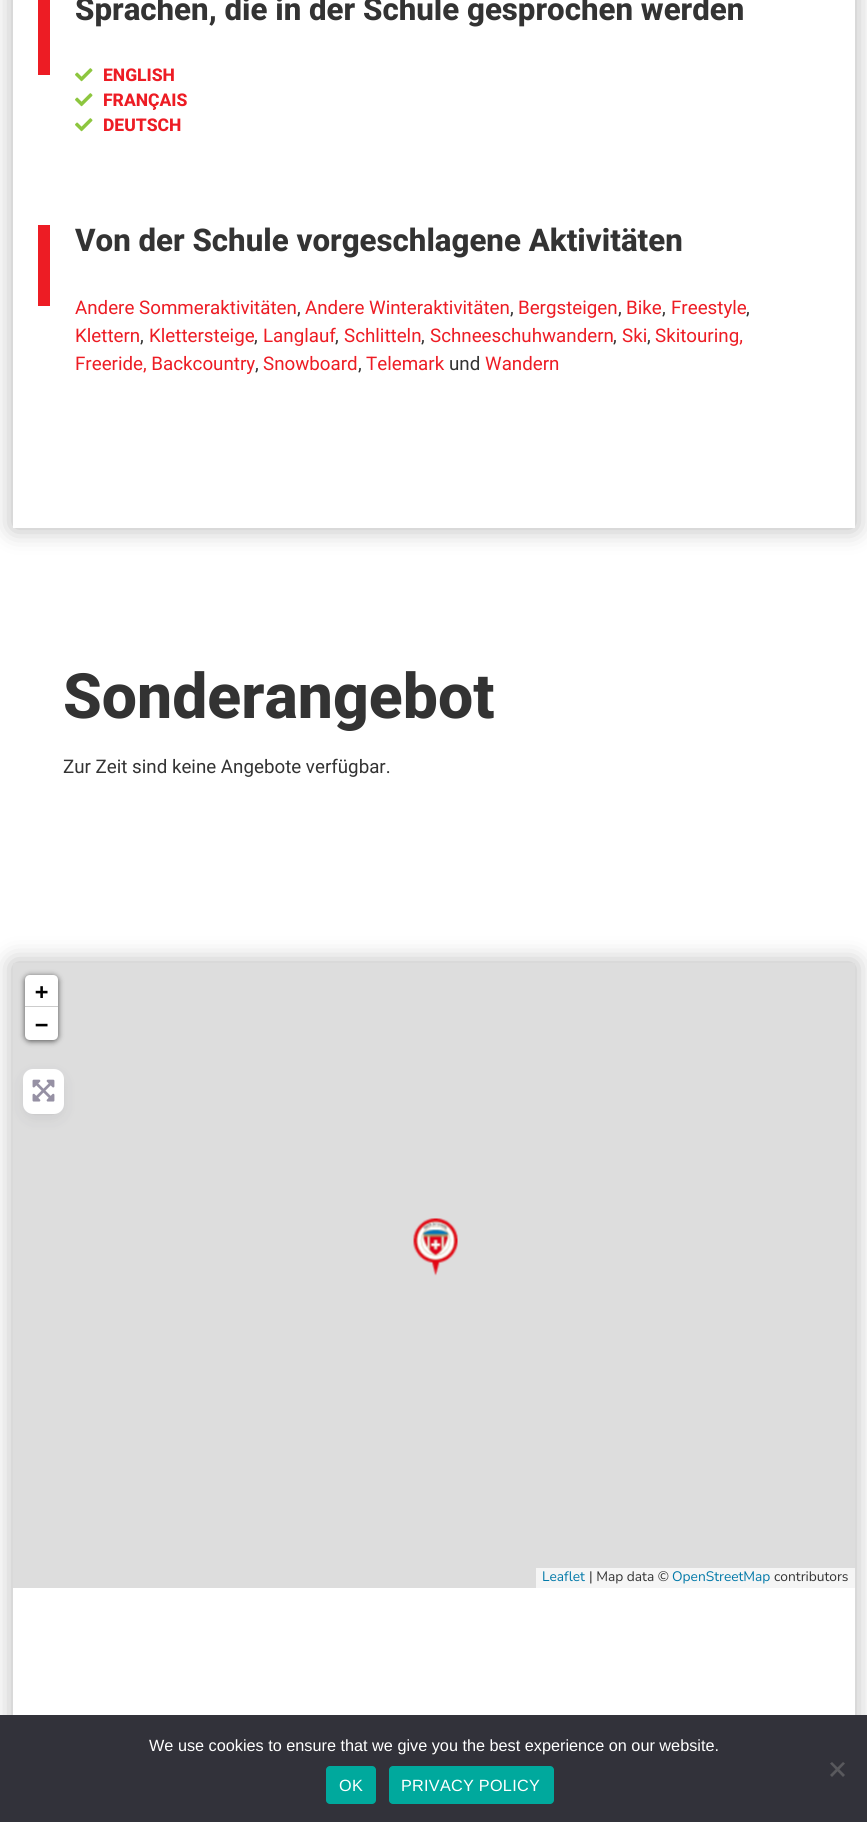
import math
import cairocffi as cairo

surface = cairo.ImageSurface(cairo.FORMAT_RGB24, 867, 1822)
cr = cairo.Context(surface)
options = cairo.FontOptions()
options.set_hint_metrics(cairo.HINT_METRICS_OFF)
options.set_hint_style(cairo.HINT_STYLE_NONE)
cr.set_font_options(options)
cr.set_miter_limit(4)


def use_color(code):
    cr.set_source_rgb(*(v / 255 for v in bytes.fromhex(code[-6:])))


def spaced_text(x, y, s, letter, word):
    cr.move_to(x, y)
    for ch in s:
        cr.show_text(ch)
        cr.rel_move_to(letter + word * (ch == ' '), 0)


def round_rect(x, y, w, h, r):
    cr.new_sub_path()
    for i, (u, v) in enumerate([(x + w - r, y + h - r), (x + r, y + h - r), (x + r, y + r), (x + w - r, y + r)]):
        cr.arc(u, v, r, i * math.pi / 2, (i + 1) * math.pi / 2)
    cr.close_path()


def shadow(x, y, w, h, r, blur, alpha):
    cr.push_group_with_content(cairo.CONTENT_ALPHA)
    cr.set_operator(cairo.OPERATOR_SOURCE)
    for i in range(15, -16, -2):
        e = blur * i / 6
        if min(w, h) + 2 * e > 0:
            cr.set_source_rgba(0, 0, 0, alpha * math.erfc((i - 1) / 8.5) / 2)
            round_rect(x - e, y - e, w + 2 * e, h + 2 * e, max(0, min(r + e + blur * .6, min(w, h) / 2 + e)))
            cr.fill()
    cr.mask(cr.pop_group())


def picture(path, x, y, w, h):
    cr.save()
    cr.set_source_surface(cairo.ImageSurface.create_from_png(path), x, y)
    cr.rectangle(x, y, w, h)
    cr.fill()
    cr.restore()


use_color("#ffffff")
cr.paint()
use_color("#000000")
shadow(13, -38, 842, 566, 0, 12.5, 0.3)
use_color("#ffffff")
cr.rectangle(13, 0, 842, 528)
cr.fill()
use_color("#ed1c24")
cr.rectangle(38, 0, 12, 75)
cr.fill()
cr.select_font_face("Roboto ExtraBold")
cr.set_font_size(31.25)
use_color("#333333")
cr.move_to(75, 20)
cr.show_text("Sprachen, die in der Schule gesprochen werden")
picture("img1.png", 75, 68, 18, 14)
cr.set_font_size(17.5)
use_color("#ed1c24")
cr.move_to(103, 81)
cr.show_text("ENGLISH")
picture("img1.png", 75, 93, 18, 14)
cr.move_to(103, 106)
cr.show_text("FRANÇAIS")
picture("img1.png", 75, 118, 18, 14)
cr.move_to(103, 131)
cr.show_text("DEUTSCH")
cr.rectangle(38, 225, 12, 81)
cr.fill()
cr.set_font_size(31.25)
use_color("#333333")
cr.move_to(75, 251)
cr.show_text("Von der Schule vorgeschlagene Aktivitäten")
cr.select_font_face("Roboto")
cr.set_font_size(18.75)
use_color("#ed1c24")
cr.move_to(75, 314)
cr.show_text("Andere Sommeraktivitäten")
use_color("#333333")
cr.move_to(297, 314)
cr.show_text(",")
use_color("#ed1c24")
cr.move_to(305, 314)
cr.show_text("Andere Winteraktivitäten")
use_color("#333333")
cr.move_to(510, 314)
cr.show_text(",")
use_color("#ed1c24")
cr.move_to(518, 314)
cr.show_text("Bergsteigen")
use_color("#333333")
cr.move_to(618, 314)
cr.show_text(",")
use_color("#ed1c24")
cr.move_to(626, 314)
cr.show_text("Bike")
use_color("#333333")
cr.move_to(662, 314)
cr.show_text(",")
use_color("#ed1c24")
cr.move_to(671, 314)
cr.show_text("Freestyle")
use_color("#333333")
cr.move_to(746, 314)
cr.show_text(",")
use_color("#ed1c24")
cr.move_to(75, 342)
cr.show_text("Klettern")
use_color("#333333")
cr.move_to(140, 342)
cr.show_text(",")
use_color("#ed1c24")
cr.move_to(149, 342)
cr.show_text("Klettersteige")
use_color("#333333")
cr.move_to(254, 342)
cr.show_text(",")
use_color("#ed1c24")
cr.move_to(263, 342)
cr.show_text("Langlauf")
use_color("#333333")
cr.move_to(335, 342)
cr.show_text(",")
use_color("#ed1c24")
cr.move_to(344, 342)
cr.show_text("Schlitteln")
use_color("#333333")
cr.move_to(421, 342)
cr.show_text(",")
use_color("#ed1c24")
cr.move_to(430, 342)
cr.show_text("Schneeschuhwandern")
use_color("#333333")
cr.move_to(613, 342)
cr.show_text(",")
use_color("#ed1c24")
cr.move_to(622, 342)
cr.show_text("Ski")
use_color("#333333")
cr.move_to(647, 342)
cr.show_text(",")
use_color("#ed1c24")
cr.move_to(655, 342)
cr.show_text("Skitouring,")
cr.move_to(75, 370)
cr.show_text("Freeride, Backcountry")
use_color("#333333")
cr.move_to(255, 370)
cr.show_text(",")
use_color("#ed1c24")
cr.move_to(263, 370)
cr.show_text("Snowboard")
use_color("#333333")
cr.move_to(358, 370)
cr.show_text(",")
use_color("#ed1c24")
cr.move_to(366, 370)
cr.show_text("Telemark")
use_color("#333333")
cr.move_to(449, 370)
cr.show_text("und")
use_color("#ed1c24")
cr.move_to(485, 370)
cr.show_text("Wandern")
cr.select_font_face("Roboto ExtraBold")
cr.set_font_size(62.5)
use_color("#333333")
cr.move_to(63, 718)
cr.show_text("Sonderangebot")
cr.select_font_face("Roboto")
cr.set_font_size(18.75)
cr.move_to(63, 773)
cr.show_text("Zur Zeit sind keine Angebote verfügbar.")
cr.save()
cr.set_fill_rule(cairo.FILL_RULE_EVEN_ODD)
cr.new_path()
cr.move_to(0, 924)
cr.line_to(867, 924)
cr.line_to(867, 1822)
cr.line_to(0, 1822)
cr.close_path()
cr.move_to(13, 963)
cr.line_to(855, 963)
cr.line_to(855, 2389)
cr.line_to(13, 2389)
cr.close_path()
cr.clip()
use_color("#000000")
shadow(13, 963, 842, 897, 0, 12.5, 0.3)
cr.restore()
use_color("#dddddd")
cr.rectangle(13, 963, 842, 625)
cr.fill()
use_color("#000000")
shadow(25, 976, 33, 65, 5, 3, 0.65)
use_color("#ffffff")
cr.new_path()
cr.move_to(30, 975)
cr.line_to(53, 975)
cr.curve_to(56, 975, 58, 977, 58, 980)
cr.line_to(58, 1008)
cr.line_to(25, 1008)
cr.line_to(25, 980)
cr.curve_to(25, 977, 27, 975, 30, 975)
cr.close_path()
cr.fill()
use_color("#cccccc")
cr.rectangle(25, 1006, 33, 1)
cr.fill()
cr.select_font_face("DejaVu Sans Mono", cairo.FONT_SLANT_NORMAL, cairo.FONT_WEIGHT_BOLD)
cr.set_font_size(22)
use_color("#000000")
cr.move_to(35, 999)
cr.show_text("+")
use_color("#ffffff")
cr.new_path()
cr.move_to(25, 1008)
cr.line_to(58, 1008)
cr.line_to(58, 1035)
cr.curve_to(58, 1038, 56, 1040, 53, 1040)
cr.line_to(30, 1040)
cr.curve_to(27, 1040, 25, 1038, 25, 1035)
cr.close_path()
cr.fill()
use_color("#000000")
cr.move_to(35, 1032)
cr.show_text("−")
use_color("#f5f5f5")
cr.rectangle(536, 1568, 319, 20)
cr.fill()
cr.select_font_face("Nunito")
cr.set_font_size(13.75)
use_color("#0078a8")
cr.move_to(542, 1581)
cr.show_text("Leaflet")
use_color("#333333")
cr.move_to(589, 1581)
cr.show_text("| Map data ©")
use_color("#0078a8")
cr.move_to(672, 1581)
cr.show_text("OpenStreetMap")
use_color("#333333")
cr.move_to(774, 1581)
cr.show_text("contributors")
picture("img2.png", 413, 1218, 45, 58)
use_color("#1f1b2d")
shadow(23, 1074, 41, 45, 10, 7.5, 0.08)
shadow(25, 1074, 36, 40, 8, 1, 0.08)
use_color("#ffffff")
round_rect(23, 1069, 41, 45, 10)
cr.fill()
picture("img3.png", 32, 1079, 23, 23)
use_color("#32323a")
cr.rectangle(0, 1715, 867, 107)
cr.fill()
cr.select_font_face("Liberation Sans")
cr.set_font_size(16.25)
use_color("#ffffff")
cr.move_to(149, 1751)
cr.show_text("We use cookies to ensure that we give you the best experience on our website.")
use_color("#59595d")
cr.new_path()
cr.move_to(843, 1762)
cr.line_to(845, 1763.5)
cr.line_to(832, 1777)
cr.line_to(830, 1775)
cr.close_path()
cr.fill()
cr.new_path()
cr.move_to(830, 1763.5)
cr.line_to(832, 1762)
cr.line_to(845, 1775)
cr.line_to(843, 1777)
cr.close_path()
cr.fill()
use_color("#00a99d")
round_rect(326, 1766, 50, 38, 4)
cr.fill()
use_color("#ffffff")
spaced_text(339, 1791, "OK", 0.25, 0)
use_color("#00a99d")
round_rect(389, 1766, 165, 38, 4)
cr.fill()
use_color("#ffffff")
spaced_text(401, 1791, "PRIVACY POLICY", 0.25, 0)
surface.write_to_png("result.png")
